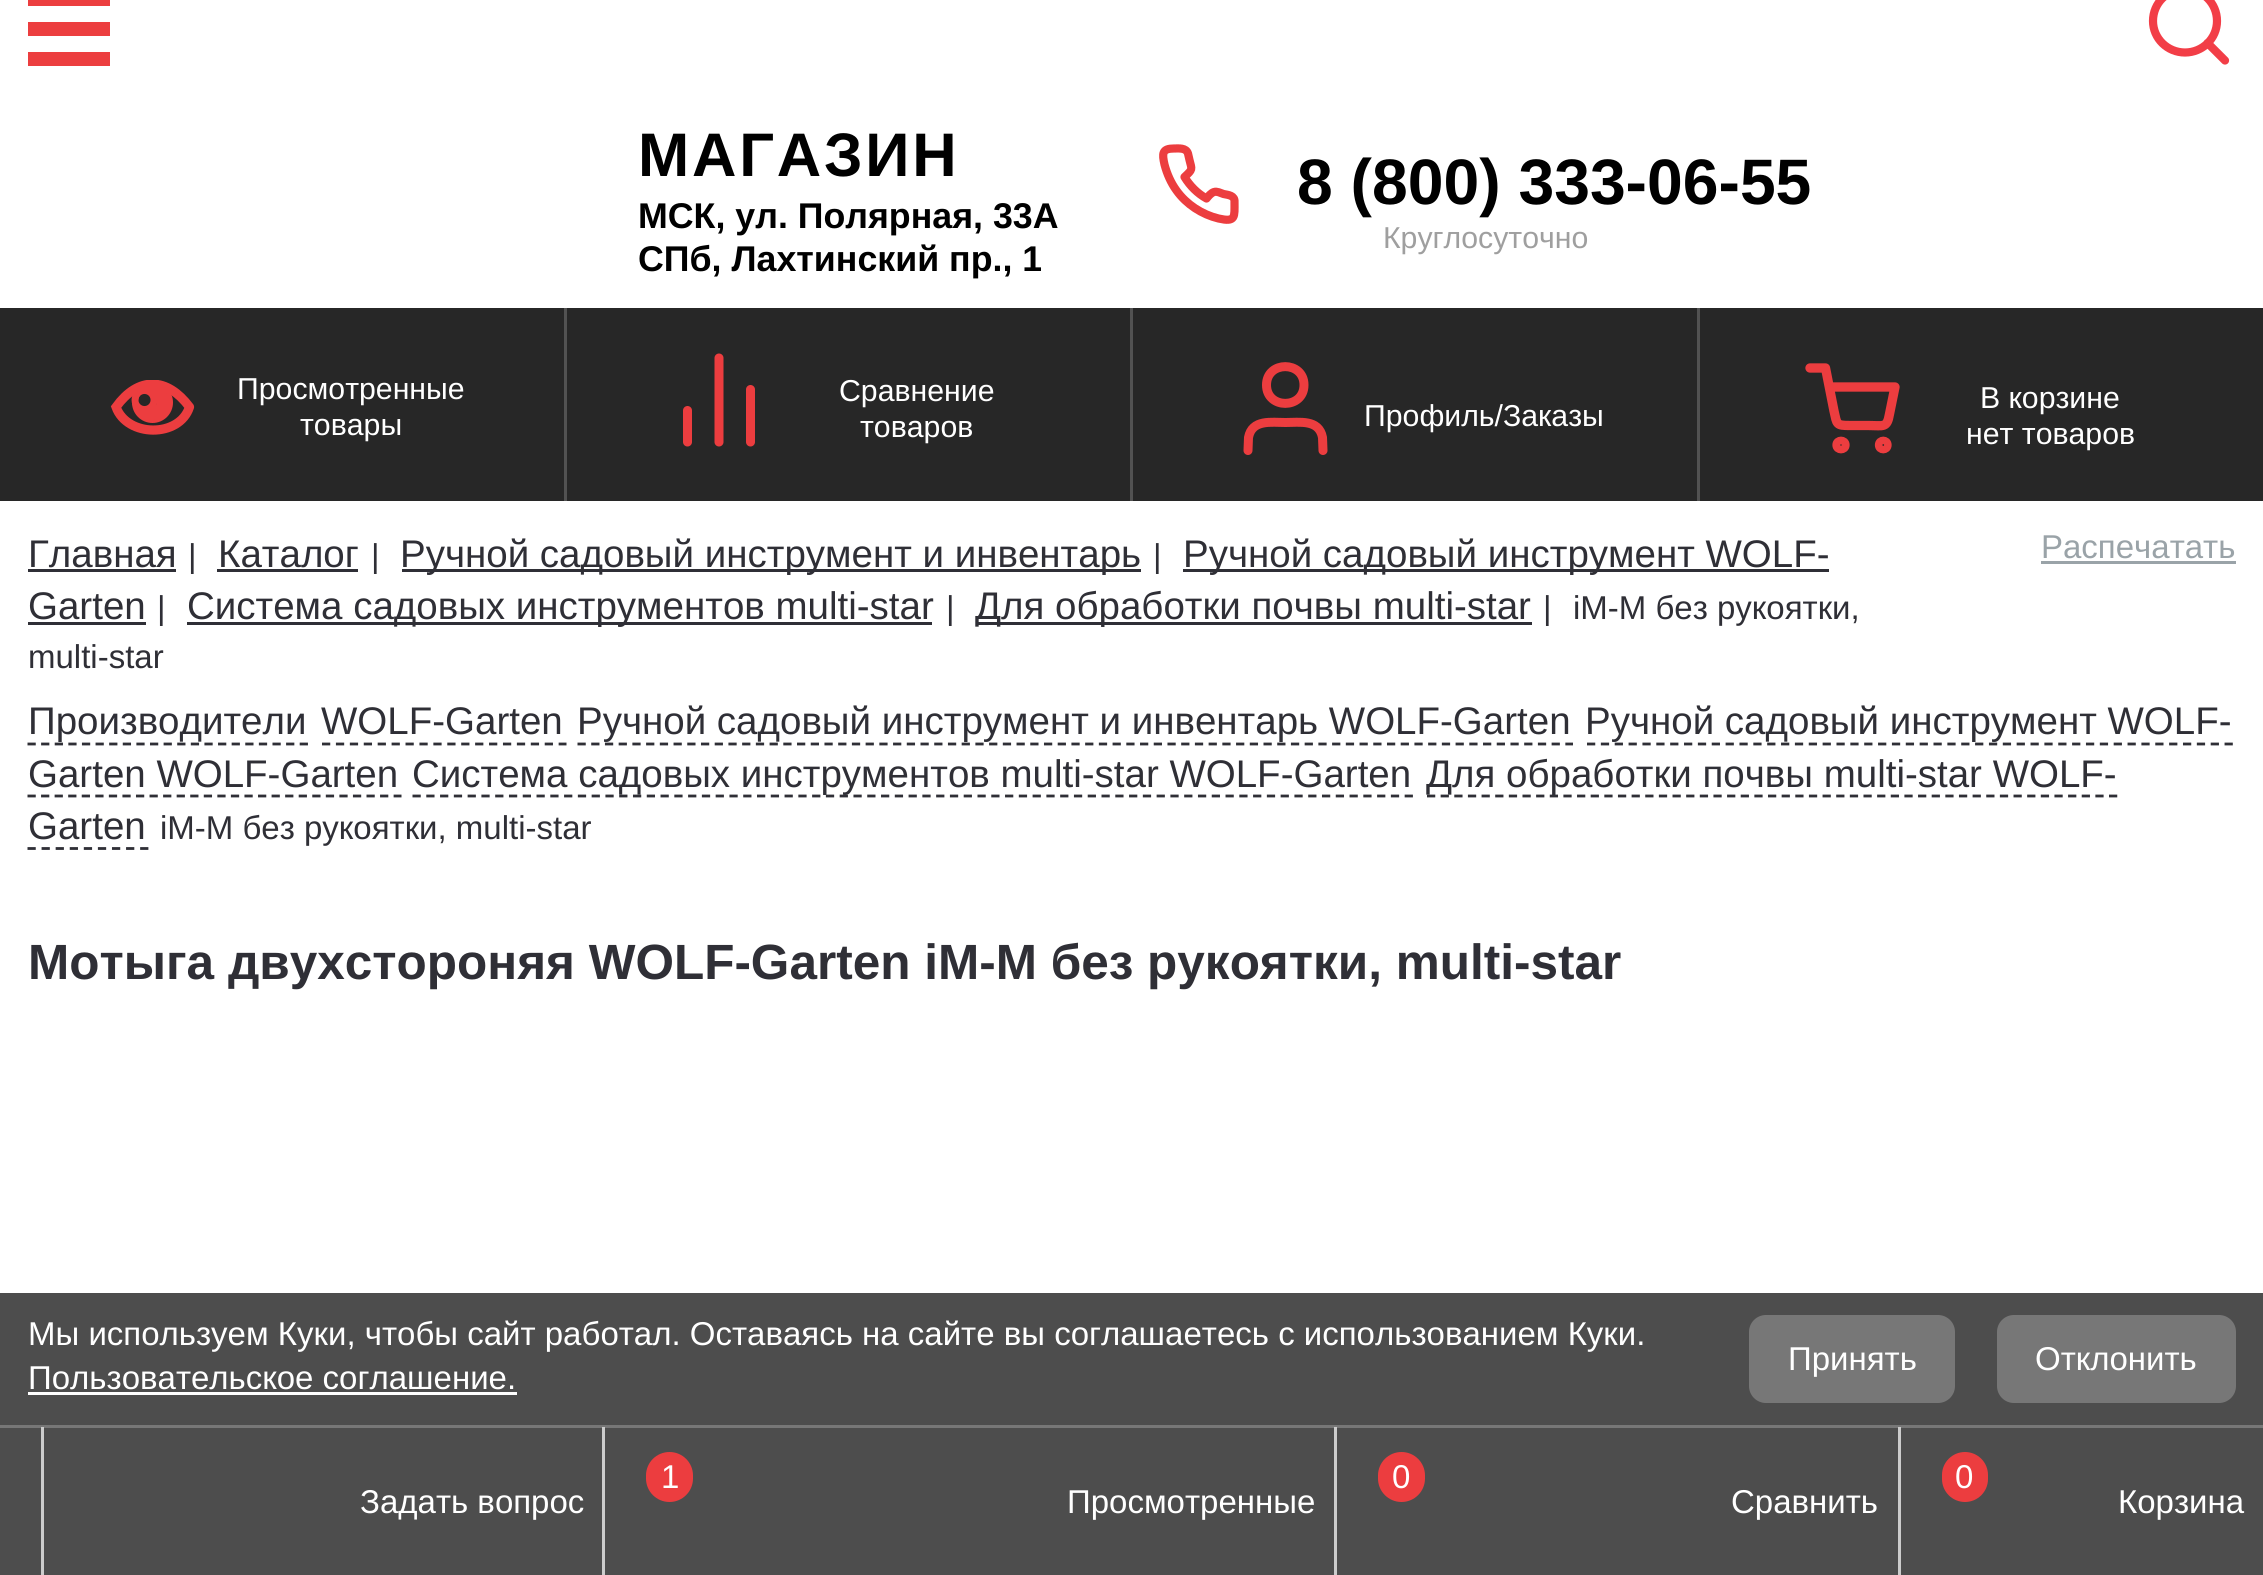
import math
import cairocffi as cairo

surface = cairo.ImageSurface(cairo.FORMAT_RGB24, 2263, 1575)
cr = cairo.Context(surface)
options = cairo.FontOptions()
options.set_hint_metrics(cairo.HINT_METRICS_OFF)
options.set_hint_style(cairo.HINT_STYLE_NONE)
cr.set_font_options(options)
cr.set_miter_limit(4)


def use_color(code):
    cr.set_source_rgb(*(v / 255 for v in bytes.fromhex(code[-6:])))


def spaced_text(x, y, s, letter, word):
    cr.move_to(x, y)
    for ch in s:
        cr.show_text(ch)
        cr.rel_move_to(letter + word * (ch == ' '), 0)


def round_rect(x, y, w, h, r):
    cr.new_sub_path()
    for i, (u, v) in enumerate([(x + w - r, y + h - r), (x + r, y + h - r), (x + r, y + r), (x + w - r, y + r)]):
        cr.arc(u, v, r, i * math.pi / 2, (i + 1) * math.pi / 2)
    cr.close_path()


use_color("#ffffff")
cr.paint()
use_color("#ec3e3f")
cr.rectangle(28, 0, 82, 6)
cr.fill()
cr.rectangle(28, 22, 82, 14)
cr.fill()
cr.rectangle(28, 52, 82, 14)
cr.fill()
cr.new_path()
cr.move_to(2225, 60.5)
cr.line_to(2207.5, 43)
cr.move_to(2217, 21)
cr.curve_to(2217, 38.5, 2202.5, 52.5, 2185, 52.5)
cr.curve_to(2167.5, 52.5, 2153, 38.5, 2153, 21)
cr.curve_to(2153, 3, 2167.5, -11, 2185, -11)
cr.curve_to(2202.5, -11, 2217, 3, 2217, 21)
cr.close_path()
use_color("#f23e47")
cr.set_line_width(8.2)
cr.set_line_cap(cairo.LINE_CAP_ROUND)
cr.set_line_join(cairo.LINE_JOIN_ROUND)
cr.stroke()
cr.select_font_face("Liberation Sans", cairo.FONT_SLANT_NORMAL, cairo.FONT_WEIGHT_BOLD)
cr.set_font_size(61.5)
use_color("#000000")
spaced_text(638, 176, "МАГАЗИН", 2.75, 0)
cr.set_font_size(35.75)
cr.move_to(638, 228)
cr.show_text("МСК, ул. Полярная, 33А")
cr.move_to(638, 271)
cr.show_text("СПб, Лахтинский пр., 1")
cr.new_path()
cr.move_to(1234.5, 202)
cr.curve_to(1234.5, 217, 1236, 222.5, 1218.5, 218.5)
cr.curve_to(1202, 214.5, 1186.5, 204.5, 1176.5, 190.5)
cr.curve_to(1171, 183, 1167, 174, 1164.5, 164.5)
cr.curve_to(1162, 153.5, 1162, 148.5, 1174, 148.5)
cr.curve_to(1179, 148.5, 1186, 147.5, 1188, 153.5)
cr.line_to(1189.5, 160)
cr.curve_to(1192, 170, 1193, 169, 1184.5, 177)
cr.curve_to(1190, 186, 1197.5, 193.5, 1206.5, 198.5)
cr.curve_to(1208.5, 196, 1211, 193, 1214, 192)
cr.curve_to(1217, 191, 1220.5, 193, 1223.5, 194)
cr.curve_to(1228.5, 195, 1235, 195.5, 1234.5, 202)
cr.close_path()
use_color("#ec3d3f")
cr.stroke()
cr.set_font_size(64.25)
use_color("#000000")
cr.move_to(1297, 204)
cr.show_text("8 (800) 333-06-55")
cr.select_font_face("Liberation Sans")
cr.set_font_size(30.25)
use_color("#9f9f9f")
cr.move_to(1383, 248)
cr.show_text("Круглосуточно")
use_color("#272727")
cr.rectangle(0, 308, 2263, 193)
cr.fill()
cr.save()
cr.rectangle(105, 380, 96, 55)
cr.clip()
cr.new_path()
cr.move_to(189.5, 407)
cr.curve_to(167, 377, 138.5, 376, 116, 407)
cr.curve_to(127, 437.5, 179.5, 438, 189.5, 407)
use_color("#ec3d3f")
cr.set_line_width(9.2)
cr.set_line_join(cairo.LINE_JOIN_MITER)
cr.stroke()
cr.restore()
cr.arc(144.5, 400, 9.5, 0, 2 * math.pi)
use_color("#ec3d3f")
cr.set_line_width(6.9)
cr.set_line_cap(cairo.LINE_CAP_BUTT)
cr.set_line_join(cairo.LINE_JOIN_MITER)
cr.stroke()
cr.arc(152.5, 402.5, 17.5, 0, 2 * math.pi)
cr.set_line_width(6)
cr.stroke()
cr.new_path()
cr.move_to(144, 413.5)
cr.line_to(152.5, 414.5)
cr.line_to(158, 411.5)
cr.line_to(162, 406)
cr.line_to(162, 398)
cr.line_to(158.5, 392)
cr.line_to(152, 389)
cr.set_line_width(11.5)
cr.set_line_cap(cairo.LINE_CAP_ROUND)
cr.stroke()
use_color("#ffffff")
cr.move_to(237, 399)
cr.show_text("Просмотренные")
cr.move_to(300, 435)
cr.show_text("товары")
use_color("#525252")
cr.rectangle(564, 308, 3, 193)
cr.fill()
cr.new_path()
cr.move_to(750.5, 442)
cr.line_to(750.5, 389.5)
cr.move_to(719, 442)
cr.line_to(719, 358)
cr.move_to(687.5, 442)
cr.line_to(687.5, 410.5)
use_color("#ec3d3f")
cr.set_line_width(9)
cr.set_line_join(cairo.LINE_JOIN_ROUND)
cr.stroke()
use_color("#ffffff")
cr.move_to(839, 401)
cr.show_text("Сравнение")
cr.move_to(860, 437)
cr.show_text("товаров")
use_color("#525252")
cr.rectangle(1130, 308, 3, 193)
cr.fill()
cr.new_path()
cr.move_to(1323, 450.5)
cr.line_to(1322.5, 437.5)
cr.curve_to(1319, 419, 1299.5, 422.5, 1285.5, 422.5)
cr.curve_to(1271.5, 422.5, 1252, 419, 1248.5, 437.5)
cr.line_to(1248, 450.5)
cr.move_to(1304, 385)
cr.curve_to(1304, 409.5, 1266.5, 409.5, 1266.5, 385)
cr.curve_to(1266.5, 360.5, 1304, 360.5, 1304, 385)
cr.close_path()
use_color("#ec3d3f")
cr.stroke()
use_color("#ffffff")
cr.move_to(1364, 426)
cr.show_text("Профиль/Заказы")
use_color("#525252")
cr.rectangle(1697, 308, 3, 193)
cr.fill()
cr.new_path()
cr.move_to(1810, 368)
cr.line_to(1825.5, 368)
cr.line_to(1834, 411)
cr.curve_to(1837, 424.5, 1836, 425.5, 1850, 425.5)
cr.line_to(1868.5, 425.5)
cr.curve_to(1883.5, 425.5, 1887, 428.5, 1889.5, 414)
cr.line_to(1895, 387)
cr.line_to(1829.5, 387)
cr.move_to(1845, 445)
cr.curve_to(1845, 450, 1837, 450, 1837, 445)
cr.curve_to(1837, 440, 1845, 440, 1845, 445)
cr.close_path()
cr.move_to(1887, 445)
cr.curve_to(1887, 450, 1879.5, 450, 1879.5, 445)
cr.curve_to(1879.5, 440, 1887, 440, 1887, 445)
cr.close_path()
use_color("#ec3d3f")
cr.set_line_width(9.3)
cr.stroke()
use_color("#ffffff")
cr.move_to(1980, 408)
cr.show_text("В корзине")
cr.move_to(1966, 444)
cr.show_text("нет товаров")
cr.set_font_size(38.5)
use_color("#2f2f36")
cr.move_to(28, 567)
cr.show_text("Главная")
cr.rectangle(28, 569, 148, 3)
cr.fill()
cr.set_font_size(33)
cr.move_to(188, 567)
cr.show_text("|")
cr.set_font_size(38.5)
cr.move_to(218, 567)
cr.show_text("Каталог")
cr.rectangle(217, 569, 141, 3)
cr.fill()
cr.set_font_size(33)
cr.move_to(371, 567)
cr.show_text("|")
cr.rectangle(402, 569, 739, 3)
cr.fill()
cr.set_font_size(38.5)
cr.move_to(400, 567)
cr.show_text("Ручной садовый инструмент и инвентарь")
cr.set_font_size(33)
cr.move_to(1153, 567)
cr.show_text("|")
cr.rectangle(1183, 569, 646, 3)
cr.fill()
cr.set_font_size(38.5)
cr.move_to(1183, 567)
cr.show_text("Ручной садовый инструмент WOLF-")
cr.move_to(28, 619)
cr.show_text("Garten")
cr.rectangle(28, 622, 118, 3)
cr.fill()
cr.set_font_size(33)
cr.move_to(157, 619)
cr.show_text("|")
cr.rectangle(187, 622, 745, 3)
cr.fill()
cr.set_font_size(38.5)
cr.move_to(187, 619)
cr.show_text("Система садовых инструментов multi-star")
cr.set_font_size(33)
cr.move_to(946, 619)
cr.show_text("|")
cr.rectangle(976, 622, 556, 3)
cr.fill()
cr.set_font_size(38.5)
cr.move_to(975, 619)
cr.show_text("Для обработки почвы multi-star")
cr.set_font_size(33)
cr.move_to(1543, 619)
cr.show_text("|")
cr.move_to(1573, 619)
cr.show_text("iM-M без рукоятки,")
cr.move_to(28, 668)
cr.show_text("multi-star")
use_color("#9aa3a8")
cr.move_to(2041, 558)
cr.show_text("Распечатать")
cr.rectangle(2041, 561, 195, 3)
cr.fill()
cr.set_font_size(38.5)
use_color("#2f2f36")
cr.move_to(28, 734)
cr.show_text("Производители")
cr.new_path()
cr.move_to(27.5, 744)
cr.line_to(308, 744)
cr.set_line_width(2.8)
cr.set_line_cap(cairo.LINE_CAP_BUTT)
cr.set_line_join(cairo.LINE_JOIN_MITER)
cr.set_dash([8.25, 5.36])
cr.stroke()
cr.move_to(321, 734)
cr.show_text("WOLF-Garten")
cr.new_path()
cr.move_to(322, 744)
cr.line_to(566.5, 744)
cr.set_dash([8.25, 5.67])
cr.stroke()
cr.move_to(577, 734)
cr.show_text("Ручной садовый инструмент и инвентарь WOLF-Garten")
cr.new_path()
cr.move_to(577.5, 744)
cr.line_to(1573, 744)
cr.set_dash([8.25, 5.47])
cr.stroke()
cr.move_to(1585, 734)
cr.show_text("Ручной садовый инструмент WOLF-")
cr.new_path()
cr.move_to(1587, 744)
cr.line_to(2233, 744)
cr.set_dash([8.25, 5.61])
cr.stroke()
cr.move_to(28, 787)
cr.show_text("Garten WOLF-Garten")
cr.new_path()
cr.move_to(27.5, 796)
cr.line_to(401.5, 796)
cr.set_dash([8.25, 5.31])
cr.stroke()
cr.new_path()
cr.move_to(412.5, 796)
cr.line_to(1413.5, 796)
cr.set_dash([8.25, 5.53])
cr.stroke()
cr.move_to(412, 787)
cr.show_text("Система садовых инструментов multi-star WOLF-Garten")
cr.new_path()
cr.move_to(1427, 796)
cr.line_to(2117.5, 796)
cr.set_dash([8.25, 5.39])
cr.stroke()
cr.move_to(1426, 787)
cr.show_text("Для обработки почвы multi-star WOLF-")
cr.move_to(28, 839)
cr.show_text("Garten")
cr.new_path()
cr.move_to(27.5, 848.5)
cr.line_to(148.5, 848.5)
cr.set_dash([8.25, 5.83])
cr.stroke()
cr.set_font_size(33)
cr.move_to(160, 839)
cr.show_text("iM-M без рукоятки, multi-star")
cr.select_font_face("Liberation Sans", cairo.FONT_SLANT_NORMAL, cairo.FONT_WEIGHT_BOLD)
cr.set_font_size(49.5)
cr.move_to(28, 979)
cr.show_text("Мотыга двухстороняя WOLF-Garten iM-M без рукоятки, multi-star")
use_color("#4d4d4d")
cr.rectangle(0, 1293, 2263, 282)
cr.fill()
use_color("#777777")
cr.rectangle(0, 1425, 2263, 3)
cr.fill()
cr.select_font_face("Liberation Sans")
cr.set_font_size(33)
use_color("#ffffff")
cr.move_to(28, 1345)
cr.show_text("Мы используем Куки, чтобы сайт работал. Оставаясь на сайте вы соглашаетесь с использованием Куки.")
cr.move_to(28, 1389)
cr.show_text("Пользовательское соглашение.")
cr.rectangle(28, 1392, 489, 3)
cr.fill()
use_color("#777777")
round_rect(1749, 1315, 206, 88, 17)
cr.fill()
use_color("#ffffff")
cr.move_to(1788, 1370)
cr.show_text("Принять")
use_color("#777777")
round_rect(1997, 1315, 239, 88, 17)
cr.fill()
use_color("#ffffff")
cr.move_to(2035, 1370)
cr.show_text("Отклонить")
use_color("#cccccc")
cr.rectangle(41, 1427, 3, 148)
cr.fill()
use_color("#ffffff")
cr.move_to(360, 1513)
cr.show_text("Задать вопрос")
use_color("#cccccc")
cr.rectangle(602, 1427, 3, 148)
cr.fill()
use_color("#ec3d3f")
round_rect(646, 1452, 47, 50, 23.5)
cr.fill()
use_color("#ffffff")
cr.move_to(661, 1488)
cr.show_text("1")
cr.move_to(1067, 1513)
cr.show_text("Просмотренные")
use_color("#cccccc")
cr.rectangle(1334, 1427, 3, 148)
cr.fill()
use_color("#ec3d3f")
round_rect(1378, 1452, 47, 50, 23.5)
cr.fill()
use_color("#ffffff")
cr.move_to(1392, 1488)
cr.show_text("0")
cr.move_to(1731, 1513)
cr.show_text("Сравнить")
use_color("#cccccc")
cr.rectangle(1898, 1427, 3, 148)
cr.fill()
use_color("#ec3d3f")
round_rect(1942, 1452, 46, 50, 23)
cr.fill()
use_color("#ffffff")
cr.move_to(1955, 1488)
cr.show_text("0")
cr.move_to(2118, 1513)
cr.show_text("Корзина")
surface.write_to_png("result.png")
